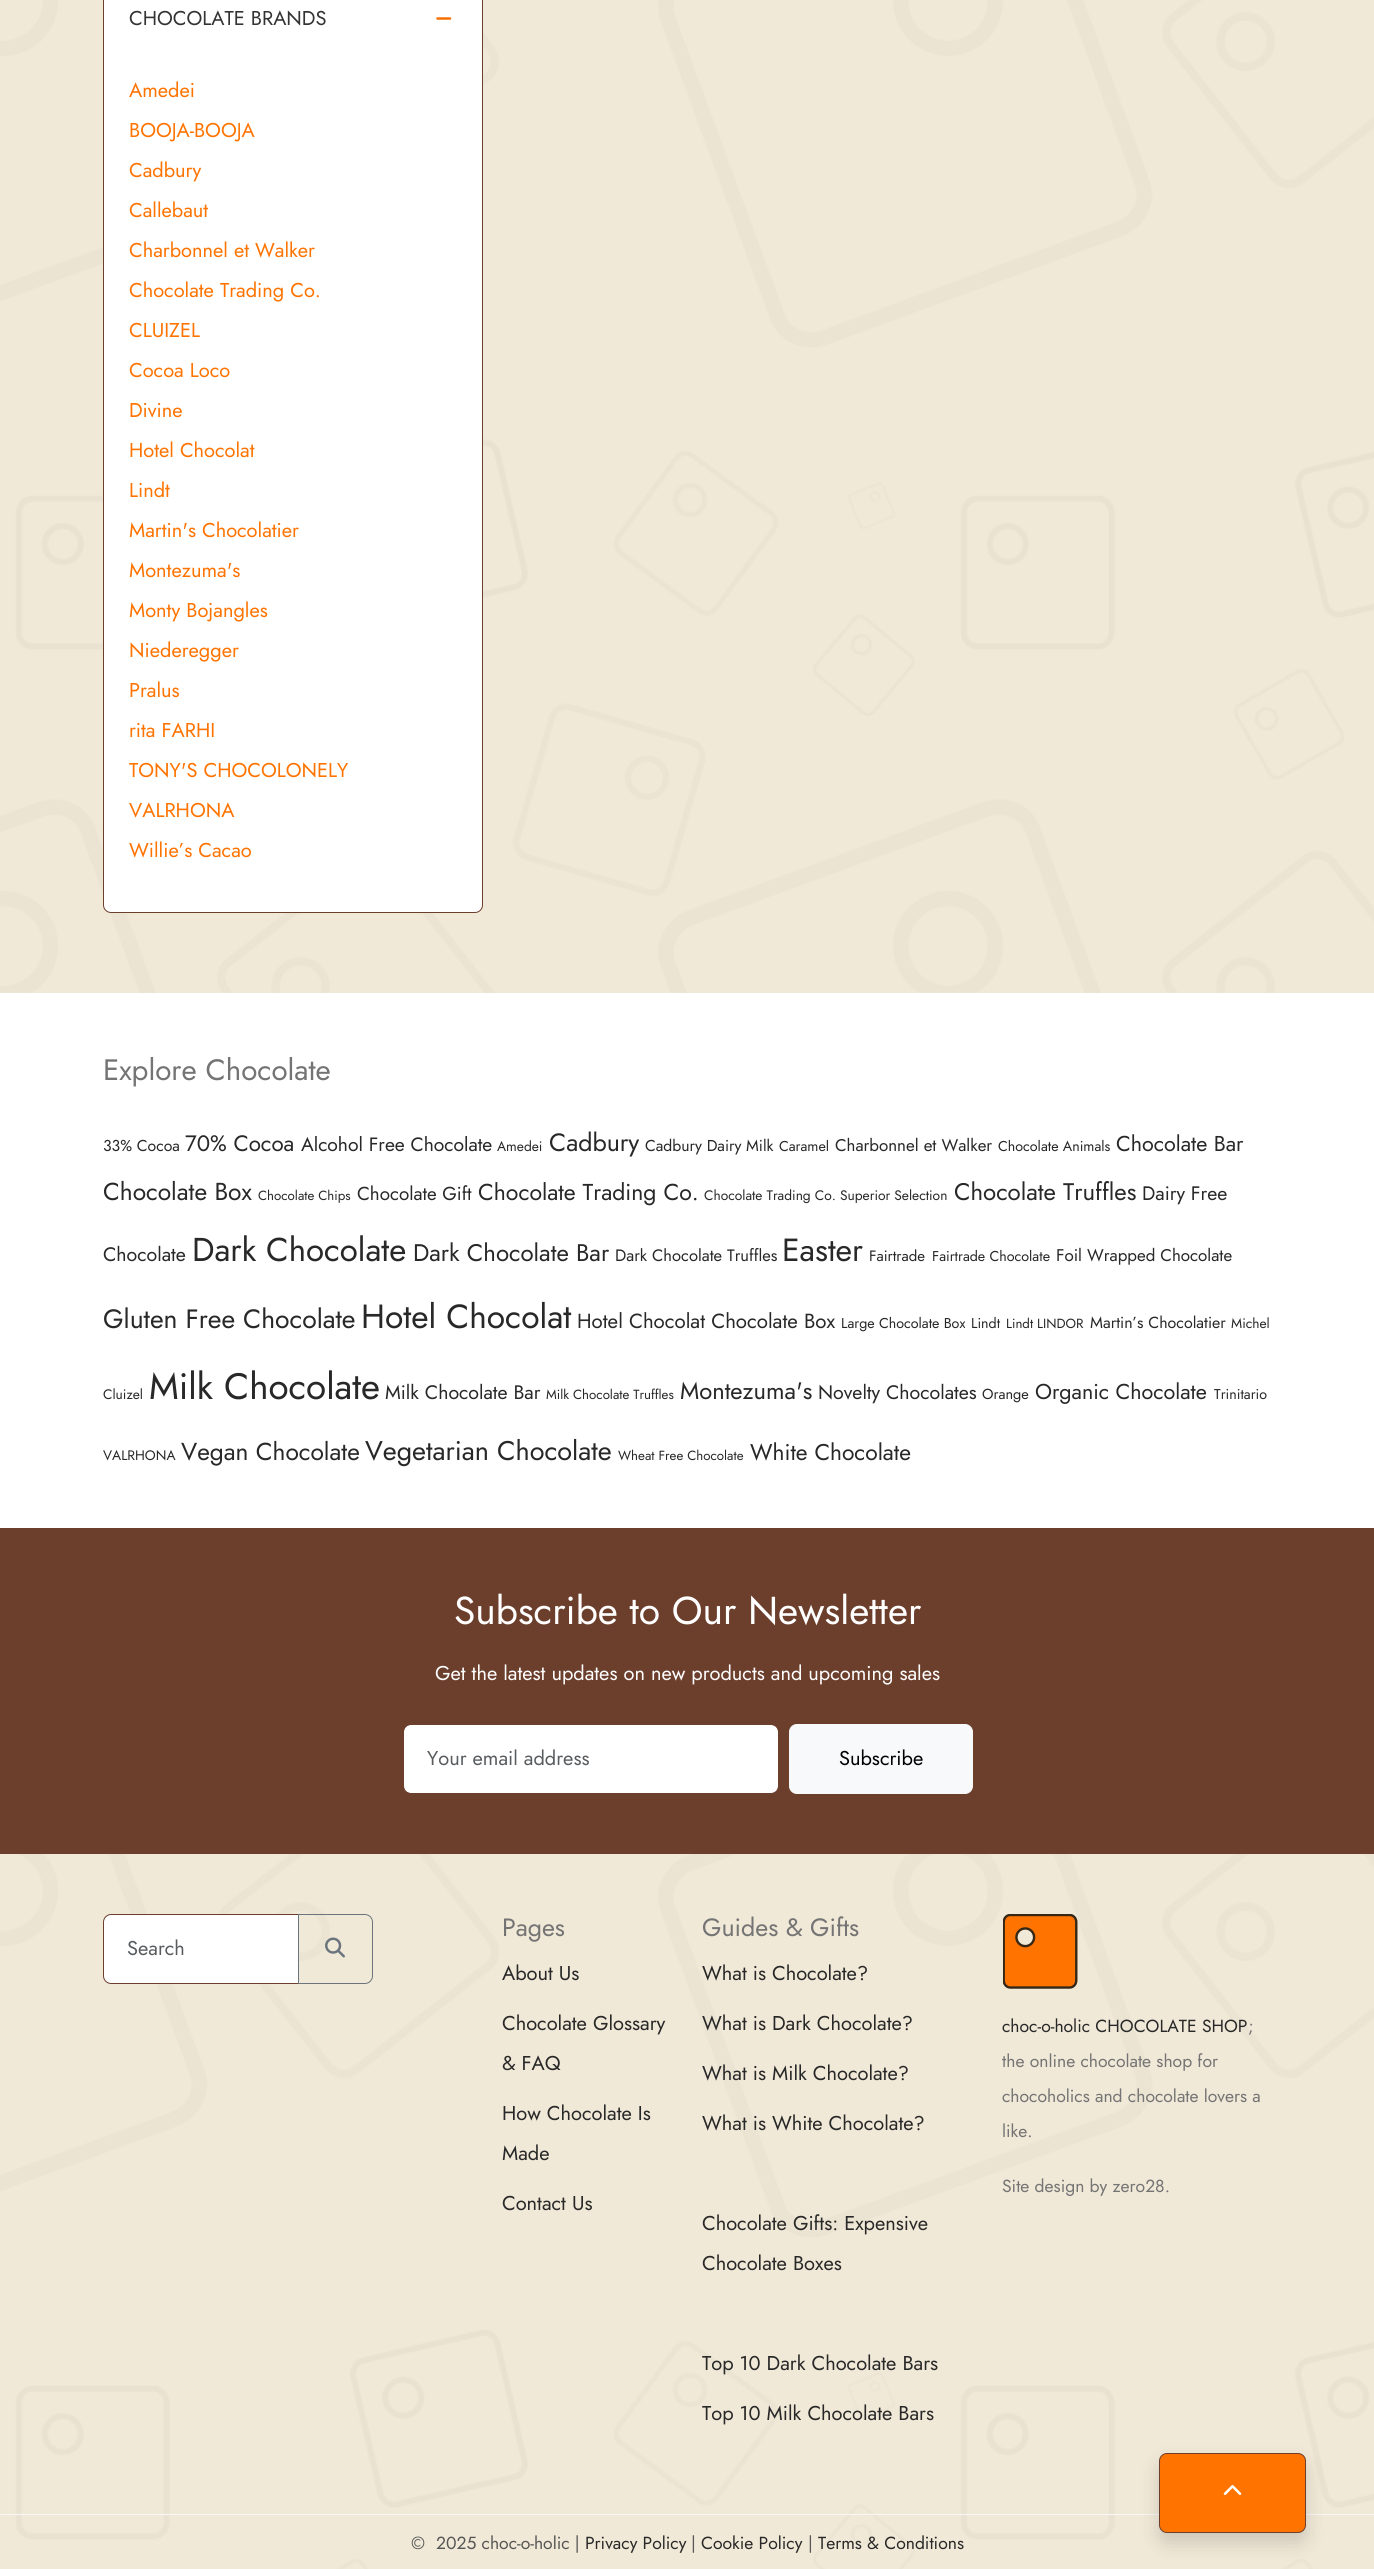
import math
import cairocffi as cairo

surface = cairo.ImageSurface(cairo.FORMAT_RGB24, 1374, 2569)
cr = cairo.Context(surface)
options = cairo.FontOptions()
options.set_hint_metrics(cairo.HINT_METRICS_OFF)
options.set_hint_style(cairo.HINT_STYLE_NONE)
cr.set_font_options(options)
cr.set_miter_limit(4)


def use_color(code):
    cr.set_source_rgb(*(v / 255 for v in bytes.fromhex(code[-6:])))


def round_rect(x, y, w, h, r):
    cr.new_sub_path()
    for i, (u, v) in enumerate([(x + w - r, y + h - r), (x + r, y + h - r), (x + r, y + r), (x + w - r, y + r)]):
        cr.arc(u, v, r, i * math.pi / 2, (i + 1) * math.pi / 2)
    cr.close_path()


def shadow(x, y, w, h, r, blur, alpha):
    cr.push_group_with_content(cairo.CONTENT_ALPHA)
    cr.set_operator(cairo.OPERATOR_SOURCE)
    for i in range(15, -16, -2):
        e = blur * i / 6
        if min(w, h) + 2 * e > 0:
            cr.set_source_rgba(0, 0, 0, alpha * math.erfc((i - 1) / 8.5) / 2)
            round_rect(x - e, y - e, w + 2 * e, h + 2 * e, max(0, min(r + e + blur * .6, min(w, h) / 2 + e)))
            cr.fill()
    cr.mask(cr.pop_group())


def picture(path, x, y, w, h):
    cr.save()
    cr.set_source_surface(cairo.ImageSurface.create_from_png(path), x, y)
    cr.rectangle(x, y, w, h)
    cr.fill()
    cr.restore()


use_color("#ffffff")
cr.paint()
picture("img1.png", 0, 0, 1374, 2569)
use_color("#ffffff")
round_rect(103.5, -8.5, 379, 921, 7.5)
cr.fill_preserve()
use_color("#6c3f2d")
cr.set_line_width(1)
cr.stroke()
cr.select_font_face("Jost")
cr.set_font_size(20)
use_color("#333333")
cr.move_to(129, 25)
cr.show_text("CHOCOLATE BRANDS")
cr.new_path()
cr.move_to(450, 18.5)
cr.line_to(437.5, 18.5)
use_color("#f56f00")
cr.set_line_width(2.5)
cr.set_line_cap(cairo.LINE_CAP_ROUND)
cr.set_line_join(cairo.LINE_JOIN_ROUND)
cr.set_dash([], 2.36)
cr.stroke()
use_color("#ff7300")
cr.move_to(129, 97)
cr.show_text("Amedei")
cr.move_to(129, 137)
cr.show_text("BOOJA-BOOJA")
cr.move_to(129, 177)
cr.show_text("Cadbury")
cr.move_to(129, 217)
cr.show_text("Callebaut")
cr.move_to(129, 257)
cr.show_text("Charbonnel et Walker")
cr.move_to(129, 297)
cr.show_text("Chocolate Trading Co.")
cr.move_to(129, 337)
cr.show_text("CLUIZEL")
cr.move_to(129, 377)
cr.show_text("Cocoa Loco")
cr.move_to(129, 417)
cr.show_text("Divine")
cr.move_to(129, 457)
cr.show_text("Hotel Chocolat")
cr.move_to(129, 497)
cr.show_text("Lindt")
cr.move_to(129, 537)
cr.show_text("Martin's Chocolatier")
cr.move_to(129, 577)
cr.show_text("Montezuma's")
cr.move_to(129, 617)
cr.show_text("Monty Bojangles")
cr.move_to(129, 657)
cr.show_text("Niederegger")
cr.move_to(129, 697)
cr.show_text("Pralus")
cr.move_to(129, 737)
cr.show_text("rita FARHI")
cr.move_to(129, 777)
cr.show_text("TONY'S CHOCOLONELY")
cr.move_to(129, 817)
cr.show_text("VALRHONA")
cr.move_to(129, 857)
cr.show_text("Willie’s Cacao")
use_color("#ffffff")
cr.rectangle(0, 993, 1374, 535)
cr.fill()
cr.set_font_size(29.5)
use_color("#747474")
cr.move_to(103, 1080)
cr.show_text("Explore Chocolate")
cr.set_font_size(15.75)
use_color("#282828")
cr.move_to(103, 1151)
cr.show_text("33% Cocoa")
cr.set_font_size(22.25)
cr.move_to(185, 1151)
cr.show_text("70% Cocoa")
cr.set_font_size(19.25)
cr.move_to(301, 1151)
cr.show_text("Alcohol Free Chocolate")
cr.set_font_size(13.75)
cr.move_to(497, 1151)
cr.show_text("Amedei")
cr.set_font_size(25)
cr.move_to(549, 1151)
cr.show_text("Cadbury")
cr.set_font_size(15.75)
cr.move_to(645, 1151)
cr.show_text("Cadbury Dairy Milk")
cr.set_font_size(14.25)
cr.move_to(779, 1151)
cr.show_text("Caramel")
cr.set_font_size(16.9)
cr.move_to(835, 1151)
cr.show_text("Charbonnel et Walker")
cr.set_font_size(14.25)
cr.move_to(998, 1151)
cr.show_text("Chocolate Animals")
cr.set_font_size(21.5)
cr.move_to(1116, 1151)
cr.show_text("Chocolate Bar")
cr.set_font_size(24.5)
cr.move_to(103, 1200)
cr.show_text("Chocolate Box")
cr.set_font_size(13.25)
cr.move_to(258, 1200)
cr.show_text("Chocolate Chips")
cr.set_font_size(18.75)
cr.move_to(357, 1200)
cr.show_text("Chocolate Gift")
cr.set_font_size(23)
cr.move_to(478, 1200)
cr.show_text("Chocolate Trading Co.")
cr.set_font_size(13.75)
cr.move_to(704, 1200)
cr.show_text("Chocolate Trading Co. Superior Selection")
cr.set_font_size(24)
cr.move_to(954, 1200)
cr.show_text("Chocolate Truffles")
cr.set_font_size(19.5)
cr.move_to(1142, 1200)
cr.show_text("Dairy Free")
cr.move_to(103, 1261)
cr.show_text("Chocolate")
cr.set_font_size(33)
cr.move_to(192, 1261)
cr.show_text("Dark Chocolate")
cr.set_font_size(24)
cr.move_to(413, 1261)
cr.show_text("Dark Chocolate Bar")
cr.set_font_size(16.5)
cr.move_to(615, 1261)
cr.show_text("Dark Chocolate Truffles")
cr.set_font_size(32)
cr.move_to(782, 1261)
cr.show_text("Easter")
cr.set_font_size(15)
cr.move_to(869, 1261)
cr.show_text("Fairtrade")
cr.set_font_size(14.25)
cr.move_to(932, 1261)
cr.show_text("Fairtrade Chocolate")
cr.set_font_size(16.9)
cr.move_to(1056, 1261)
cr.show_text("Foil Wrapped Chocolate")
cr.set_font_size(26.5)
cr.move_to(103, 1328)
cr.show_text("Gluten Free Chocolate")
cr.set_font_size(33.5)
cr.move_to(361, 1328)
cr.show_text("Hotel Chocolat")
cr.set_font_size(20.4)
cr.move_to(577, 1328)
cr.show_text("Hotel Chocolat Chocolate Box")
cr.set_font_size(14.25)
cr.move_to(841, 1328)
cr.show_text("Large Chocolate Box")
cr.move_to(971, 1328)
cr.show_text("Lindt")
cr.set_font_size(13.25)
cr.move_to(1006, 1328)
cr.show_text("Lindt LINDOR")
cr.set_font_size(16)
cr.move_to(1090, 1328)
cr.show_text("Martin’s Chocolatier")
cr.set_font_size(13.75)
cr.move_to(1231, 1328)
cr.show_text("Michel")
cr.move_to(103, 1399)
cr.show_text("Cluizel")
cr.set_font_size(36.75)
cr.move_to(149, 1399)
cr.show_text("Milk Chocolate")
cr.set_font_size(19.5)
cr.move_to(385, 1399)
cr.show_text("Milk Chocolate Bar")
cr.set_font_size(13.25)
cr.move_to(546, 1399)
cr.show_text("Milk Chocolate Truffles")
cr.set_font_size(23.75)
cr.move_to(680, 1399)
cr.show_text("Montezuma's")
cr.set_font_size(19.5)
cr.move_to(818, 1399)
cr.show_text("Novelty Chocolates")
cr.set_font_size(14.5)
cr.move_to(982, 1399)
cr.show_text("Orange")
cr.set_font_size(21.5)
cr.move_to(1035, 1399)
cr.show_text("Organic Chocolate")
cr.set_font_size(14.25)
cr.move_to(1214, 1399)
cr.show_text("Trinitario")
cr.set_font_size(13.75)
cr.move_to(103, 1460)
cr.show_text("VALRHONA")
cr.set_font_size(24.5)
cr.move_to(181, 1460)
cr.show_text("Vegan Chocolate")
cr.set_font_size(27)
cr.move_to(365, 1460)
cr.show_text("Vegetarian Chocolate")
cr.set_font_size(13.25)
cr.move_to(618, 1460)
cr.show_text("Wheat Free Chocolate")
cr.set_font_size(22.75)
cr.move_to(750, 1460)
cr.show_text("White Chocolate")
use_color("#6c3f2d")
cr.rectangle(0, 1528, 1374, 326)
cr.fill()
cr.set_font_size(38.9)
use_color("#ffffff")
cr.move_to(454, 1624)
cr.show_text("Subscribe to Our Newsletter")
cr.set_font_size(20)
cr.move_to(435, 1680)
cr.show_text("Get the latest updates on new products and upcoming sales")
round_rect(404, 1725, 374, 68, 6)
cr.fill()
round_rect(403.5, 1724.5, 375, 69, 7.5)
use_color("#6c3f2d")
cr.set_line_width(1)
cr.set_line_cap(cairo.LINE_CAP_BUTT)
cr.set_line_join(cairo.LINE_JOIN_MITER)
cr.set_dash([])
cr.stroke()
use_color("#595c5f")
cr.move_to(427, 1765)
cr.show_text("Your email address")
use_color("#f8f9fa")
round_rect(789.5, 1724.5, 183, 69, 7.5)
cr.fill_preserve()
cr.stroke()
use_color("#000000")
cr.move_to(839, 1765)
cr.show_text("Subscribe")
use_color("#ffffff")
cr.new_path()
cr.move_to(110, 1915)
cr.line_to(298, 1915)
cr.line_to(298, 1983)
cr.line_to(110, 1983)
cr.curve_to(106.5, 1983, 104, 1980.5, 104, 1977)
cr.line_to(104, 1921)
cr.curve_to(104, 1917.5, 106.5, 1915, 110, 1915)
cr.close_path()
cr.fill()
cr.new_path()
cr.move_to(111, 1914.5)
cr.line_to(298.5, 1914.5)
cr.line_to(298.5, 1983.5)
cr.line_to(111, 1983.5)
cr.curve_to(107, 1983.5, 103.5, 1980, 103.5, 1976)
cr.line_to(103.5, 1922)
cr.curve_to(103.5, 1918, 107, 1914.5, 111, 1914.5)
cr.close_path()
use_color("#6c3f2d")
cr.stroke()
use_color("#595c5f")
cr.move_to(127, 1955)
cr.show_text("Search")
cr.new_path()
cr.move_to(298.5, 1914.5)
cr.line_to(365, 1914.5)
cr.curve_to(369, 1914.5, 372.5, 1918, 372.5, 1922)
cr.line_to(372.5, 1976)
cr.curve_to(372.5, 1980, 369, 1983.5, 365, 1983.5)
cr.line_to(298.5, 1983.5)
cr.close_path()
use_color("#6c757d")
cr.stroke()
picture("img2.png", 325, 1937, 20, 21)
cr.set_font_size(25)
use_color("#747474")
cr.move_to(502, 1936)
cr.show_text("Pages")
cr.set_font_size(20)
use_color("#282828")
cr.move_to(502, 1980)
cr.show_text("About Us")
cr.move_to(502, 2030)
cr.show_text("Chocolate Glossary")
cr.move_to(502, 2070)
cr.show_text("& FAQ")
cr.move_to(502, 2120)
cr.show_text("How Chocolate Is")
cr.move_to(502, 2160)
cr.show_text("Made")
cr.move_to(502, 2210)
cr.show_text("Contact Us")
cr.set_font_size(25)
use_color("#747474")
cr.move_to(702, 1936)
cr.show_text("Guides & Gifts")
cr.set_font_size(20)
use_color("#282828")
cr.move_to(702, 1980)
cr.show_text("What is Chocolate?")
cr.move_to(702, 2030)
cr.show_text("What is Dark Chocolate?")
cr.move_to(702, 2080)
cr.show_text("What is Milk Chocolate?")
cr.move_to(702, 2130)
cr.show_text("What is White Chocolate?")
cr.move_to(702, 2230)
cr.show_text("Chocolate Gifts: Expensive")
cr.move_to(702, 2270)
cr.show_text("Chocolate Boxes")
cr.move_to(702, 2370)
cr.show_text("Top 10 Dark Chocolate Bars")
cr.move_to(702, 2420)
cr.show_text("Top 10 Milk Chocolate Bars")
picture("img3.png", 1003, 1914, 75, 75)
cr.set_font_size(17.5)
cr.move_to(1002, 2032)
cr.show_text("choc-o-holic CHOCOLATE SHOP")
use_color("#747474")
cr.move_to(1248, 2032)
cr.show_text(";")
cr.move_to(1002, 2067)
cr.show_text("the online chocolate shop for")
cr.move_to(1002, 2102)
cr.show_text("chocoholics and chocolate lovers a")
cr.move_to(1002, 2137)
cr.show_text("like.")
cr.move_to(1002, 2192)
cr.show_text("Site design by zero28.")
use_color("#f7f7f7")
cr.rectangle(0, 2514, 1374, 1)
cr.fill()
use_color("#555655")
cr.move_to(411, 2549)
cr.show_text("©")
cr.move_to(436, 2549)
cr.show_text("2025 choc-o-holic |")
use_color("#282828")
cr.move_to(585, 2549)
cr.show_text("Privacy Policy")
use_color("#555655")
cr.move_to(691, 2549)
cr.show_text("|")
use_color("#282828")
cr.move_to(701, 2549)
cr.show_text("Cookie Policy")
use_color("#555655")
cr.move_to(808, 2549)
cr.show_text("|")
use_color("#282828")
cr.move_to(818, 2549)
cr.show_text("Terms & Conditions")
use_color("#000000")
shadow(1159, 2463, 147, 80, 8, 10, 0.15)
use_color("#ff7300")
round_rect(1159.5, 2453.5, 146, 79, 7.5)
cr.fill_preserve()
use_color("#6c3f2d")
cr.stroke()
picture("img4.png", 1223, 2485, 19, 10)
surface.write_to_png("result.png")
